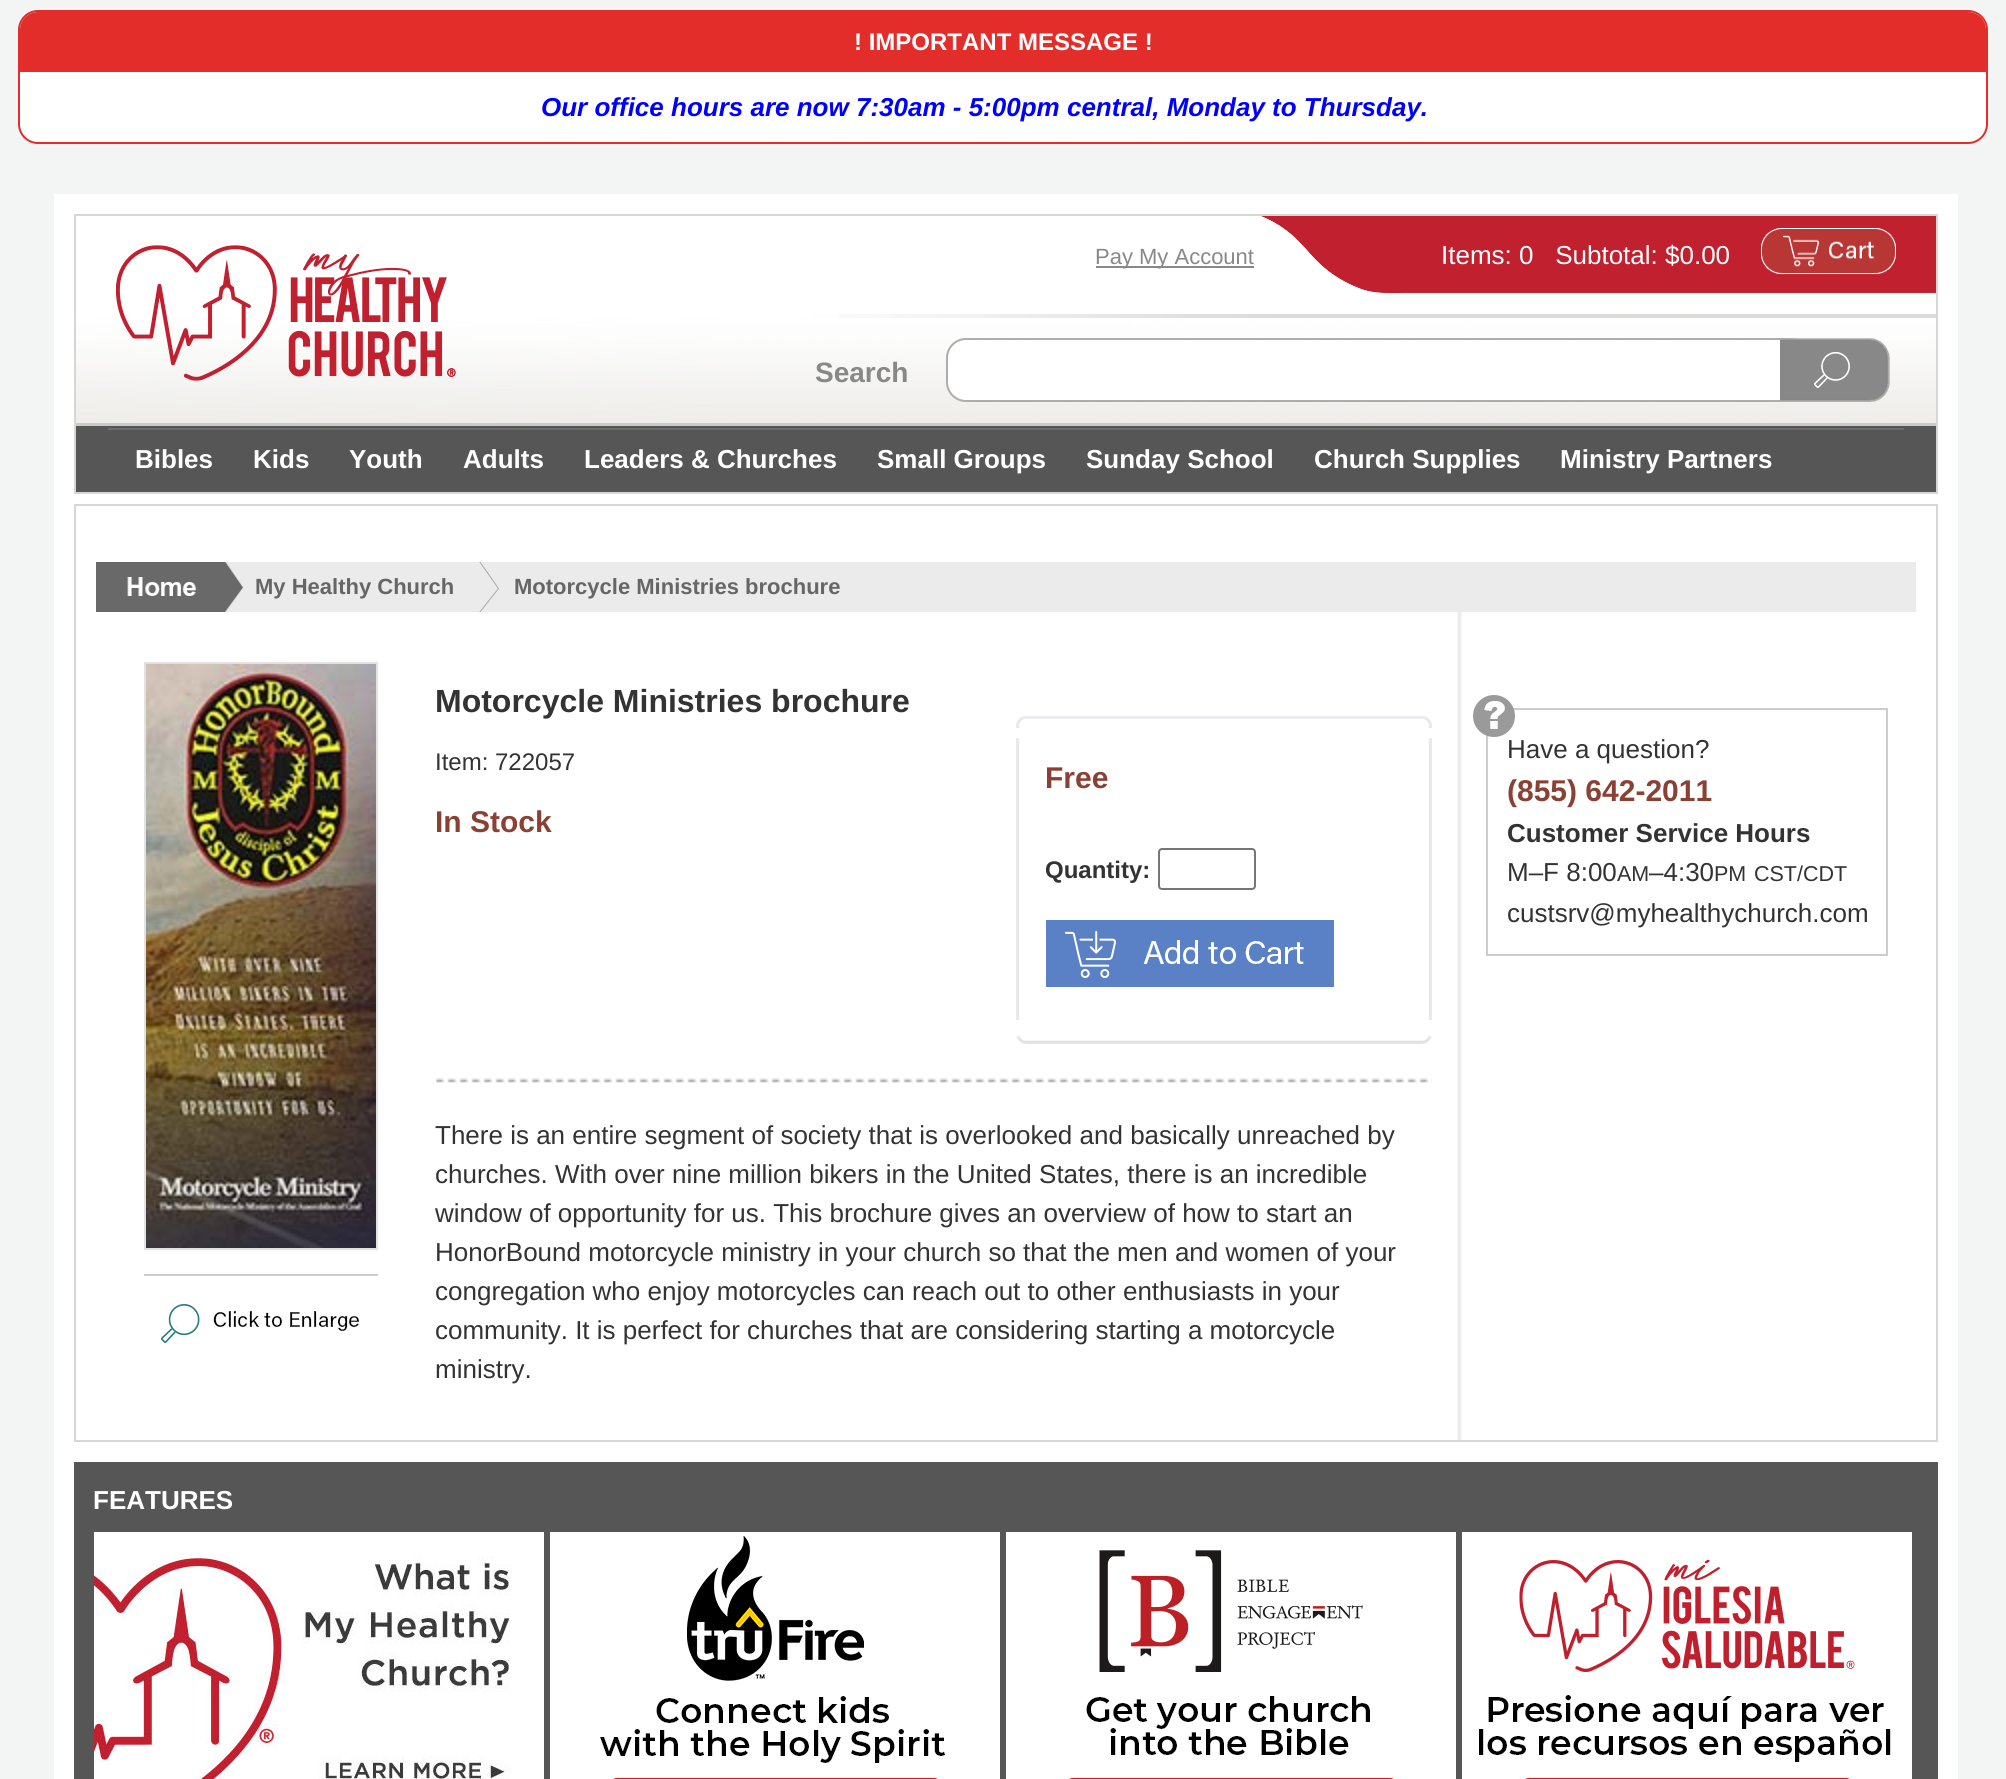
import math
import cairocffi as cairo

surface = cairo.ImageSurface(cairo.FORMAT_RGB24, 2006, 1779)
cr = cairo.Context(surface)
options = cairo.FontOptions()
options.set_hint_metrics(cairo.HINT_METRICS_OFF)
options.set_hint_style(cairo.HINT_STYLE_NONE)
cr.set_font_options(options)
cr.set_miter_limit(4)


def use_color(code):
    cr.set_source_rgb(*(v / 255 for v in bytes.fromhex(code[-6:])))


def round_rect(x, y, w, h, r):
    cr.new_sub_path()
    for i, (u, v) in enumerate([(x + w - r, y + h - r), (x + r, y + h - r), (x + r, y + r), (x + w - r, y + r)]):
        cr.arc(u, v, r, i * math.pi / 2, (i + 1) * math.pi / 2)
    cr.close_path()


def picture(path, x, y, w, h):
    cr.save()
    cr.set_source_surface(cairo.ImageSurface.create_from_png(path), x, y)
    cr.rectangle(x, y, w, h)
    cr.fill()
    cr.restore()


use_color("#f3f5f5")
cr.paint()
use_color("#ffffff")
round_rect(19, 11, 1968, 132, 19)
cr.fill_preserve()
use_color("#e32d2a")
cr.stroke()
cr.new_path()
cr.move_to(38, 12)
cr.line_to(1968, 12)
cr.curve_to(1978, 12, 1986, 20, 1986, 30)
cr.line_to(1986, 72)
cr.line_to(20, 72)
cr.line_to(20, 30)
cr.curve_to(20, 20, 28, 12, 38, 12)
cr.close_path()
cr.fill()
cr.select_font_face("Liberation Sans", cairo.FONT_SLANT_NORMAL, cairo.FONT_WEIGHT_BOLD)
cr.set_font_size(24)
use_color("#ffffff")
cr.move_to(854, 50)
cr.show_text("! IMPORTANT MESSAGE !")
cr.select_font_face("Liberation Sans", cairo.FONT_SLANT_ITALIC, cairo.FONT_WEIGHT_BOLD)
cr.set_font_size(26)
use_color("#0000ff")
cr.move_to(541, 116)
cr.show_text("Our office hours are now 7:30am - 5:00pm central, Monday to Thursday.")
use_color("#ffffff")
cr.rectangle(54, 194, 1904, 1585)
cr.fill()
cr.rectangle(75, 215, 1862, 278)
use_color("#d6d6d5")
cr.stroke()
picture("img1.png", 76, 216, 1860, 210)
use_color("#888888")
cr.rectangle(1096, 266, 158, 2)
cr.fill()
cr.select_font_face("Liberation Sans")
cr.set_font_size(22)
cr.move_to(1095, 264)
cr.show_text("Pay My Account")
cr.set_font_size(26)
use_color("#ffffff")
cr.move_to(1441, 264)
cr.show_text("Items: 0   Subtotal: $0.00")
picture("img2.png", 1761, 228, 135, 47)
cr.select_font_face("Liberation Sans", cairo.FONT_SLANT_NORMAL, cairo.FONT_WEIGHT_BOLD)
cr.set_font_size(28)
use_color("#888888")
cr.move_to(815, 382)
cr.show_text("Search")
use_color("#ffffff")
round_rect(947, 339, 862, 62, 19)
cr.fill_preserve()
use_color("#aeadac")
cr.stroke()
picture("img3.png", 1780, 338, 110, 64)
use_color("#565656")
cr.rectangle(76, 426, 1860, 66)
cr.fill()
use_color("#6c6c6c")
cr.rectangle(108, 428, 1796, 2)
cr.fill()
cr.set_font_size(26)
use_color("#ffffff")
cr.move_to(135, 468)
cr.show_text("Bibles")
cr.move_to(253, 468)
cr.show_text("Kids")
cr.move_to(349, 468)
cr.show_text("Youth")
cr.move_to(463, 468)
cr.show_text("Adults")
cr.move_to(584, 468)
cr.show_text("Leaders & Churches")
cr.move_to(877, 468)
cr.show_text("Small Groups")
cr.move_to(1086, 468)
cr.show_text("Sunday School")
cr.move_to(1314, 468)
cr.show_text("Church Supplies")
cr.move_to(1560, 468)
cr.show_text("Ministry Partners")
cr.rectangle(75, 505, 1862, 936)
use_color("#d6d6d5")
cr.stroke()
use_color("#ebebeb")
cr.rectangle(224, 562, 1692, 50)
cr.fill()
picture("img4.png", 96, 562, 148, 50)
cr.set_font_size(22)
use_color("#666666")
cr.move_to(255, 594)
cr.show_text("My Healthy Church")
picture("img5.png", 479, 562, 20, 50)
cr.move_to(514, 594)
cr.show_text("Motorcycle Ministries brochure")
picture("img6.png", 1457, 612, 5, 828)
cr.rectangle(145, 663, 232, 586)
use_color("#e2e2e2")
cr.stroke()
picture("img7.png", 146, 664, 230, 584)
use_color("#cccccc")
cr.rectangle(144, 1274, 234, 2)
cr.fill()
picture("img8.png", 161, 1304, 198, 39)
cr.set_font_size(32)
use_color("#333333")
cr.move_to(435, 712)
cr.show_text("Motorcycle Ministries brochure")
cr.select_font_face("Liberation Sans")
cr.set_font_size(24)
cr.move_to(435, 770)
cr.show_text("Item: 722057")
cr.select_font_face("Liberation Sans", cairo.FONT_SLANT_NORMAL, cairo.FONT_WEIGHT_BOLD)
cr.set_font_size(30)
use_color("#8a4134")
cr.move_to(435, 832)
cr.show_text("In Stock")
picture("img9.png", 1016, 716, 416, 12)
picture("img10.png", 1016, 738, 416, 282)
cr.move_to(1045, 788)
cr.show_text("Free")
cr.set_font_size(24)
use_color("#333333")
cr.move_to(1045, 878)
cr.show_text("Quantity:")
round_rect(1159, 849, 96, 40, 3)
use_color("#767676")
cr.stroke()
picture("img11.png", 1046, 920, 288, 67)
picture("img12.png", 1016, 1036, 416, 8)
picture("img13.png", 436, 1077, 996, 6)
cr.select_font_face("Liberation Sans")
cr.set_font_size(26)
use_color("#333333")
cr.move_to(435, 1144)
cr.show_text("There is an entire segment of society that is overlooked and basically unreached by")
cr.move_to(435, 1183)
cr.show_text("churches. With over nine million bikers in the United States, there is an incredible")
cr.move_to(435, 1222)
cr.show_text("window of opportunity for us. This brochure gives an overview of how to start an")
cr.move_to(435, 1261)
cr.show_text("HonorBound motorcycle ministry in your church so that the men and women of your")
cr.move_to(435, 1300)
cr.show_text("congregation who enjoy motorcycles can reach out to other enthusiasts in your")
cr.move_to(435, 1339)
cr.show_text("community. It is perfect for churches that are considering starting a motorcycle")
cr.move_to(435, 1378)
cr.show_text("ministry.")
cr.rectangle(1487, 709, 400, 246)
use_color("#cccccc")
cr.stroke()
picture("img14.png", 1473, 695, 42, 42)
use_color("#333333")
cr.move_to(1507, 758)
cr.show_text("Have a question?")
cr.select_font_face("Liberation Sans", cairo.FONT_SLANT_NORMAL, cairo.FONT_WEIGHT_BOLD)
cr.set_font_size(30)
use_color("#8a4134")
cr.move_to(1507, 801)
cr.show_text("(855) 642-2011")
cr.set_font_size(26)
use_color("#333333")
cr.move_to(1507, 842)
cr.show_text("Customer Service Hours")
cr.select_font_face("Liberation Sans")
cr.move_to(1507, 881)
cr.show_text("M–F 8:00")
cr.set_font_size(21.5)
cr.move_to(1617, 881)
cr.show_text("AM")
cr.set_font_size(26)
cr.move_to(1649, 881)
cr.show_text("–4:30")
cr.set_font_size(21.5)
cr.move_to(1714, 881)
cr.show_text("PM")
cr.move_to(1754, 881)
cr.show_text("CST/CDT")
cr.set_font_size(26)
cr.move_to(1507, 922)
cr.show_text("custsrv@myhealthychurch.com")
use_color("#565656")
cr.rectangle(74, 1462, 1864, 317)
cr.fill()
cr.select_font_face("Liberation Sans", cairo.FONT_SLANT_NORMAL, cairo.FONT_WEIGHT_BOLD)
use_color("#ffffff")
cr.move_to(93, 1509)
cr.show_text("FEATURES")
picture("img15.png", 94, 1532, 450, 247)
picture("img16.png", 550, 1532, 450, 247)
picture("img17.png", 1006, 1532, 450, 247)
picture("img18.png", 1462, 1532, 450, 247)
surface.write_to_png("result.png")
